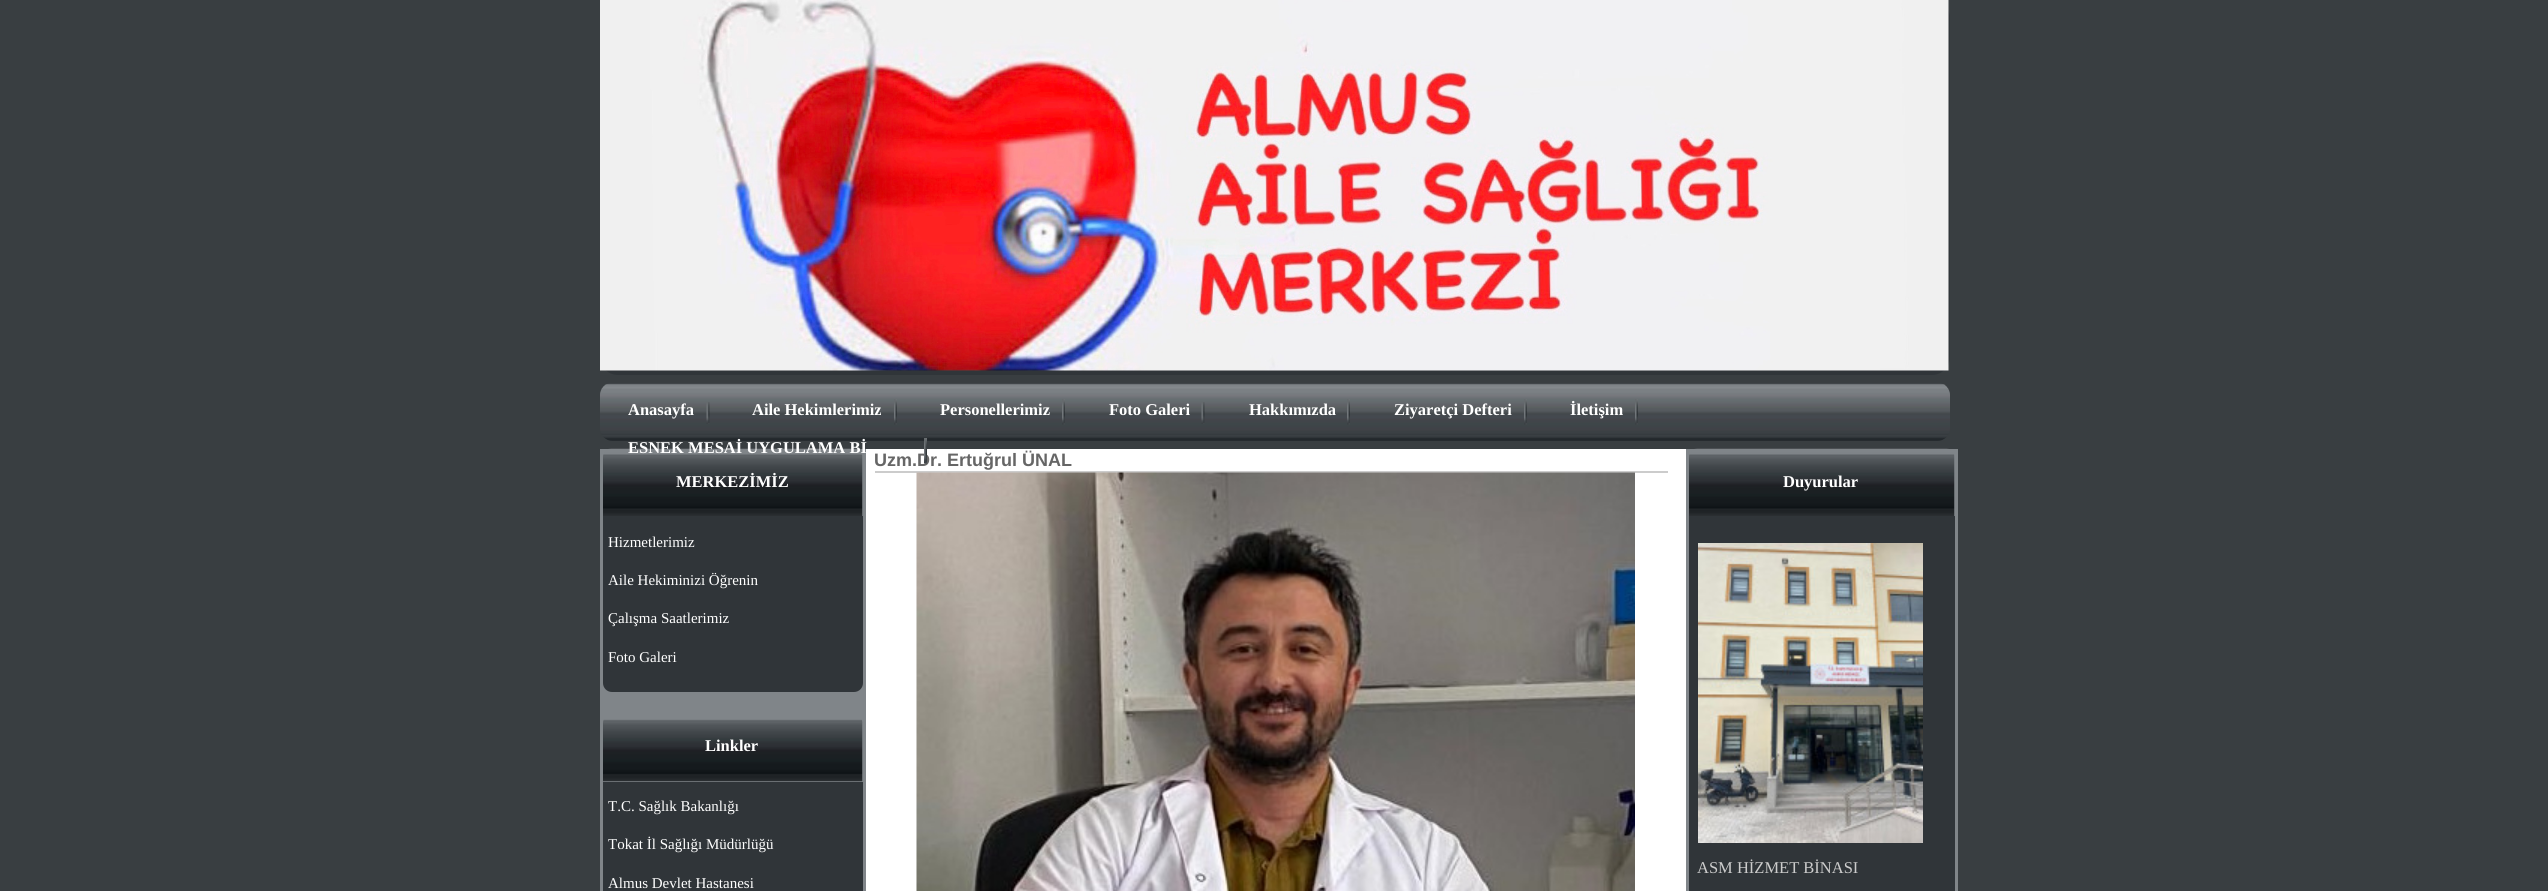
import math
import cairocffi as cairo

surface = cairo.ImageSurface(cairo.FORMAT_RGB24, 2548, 891)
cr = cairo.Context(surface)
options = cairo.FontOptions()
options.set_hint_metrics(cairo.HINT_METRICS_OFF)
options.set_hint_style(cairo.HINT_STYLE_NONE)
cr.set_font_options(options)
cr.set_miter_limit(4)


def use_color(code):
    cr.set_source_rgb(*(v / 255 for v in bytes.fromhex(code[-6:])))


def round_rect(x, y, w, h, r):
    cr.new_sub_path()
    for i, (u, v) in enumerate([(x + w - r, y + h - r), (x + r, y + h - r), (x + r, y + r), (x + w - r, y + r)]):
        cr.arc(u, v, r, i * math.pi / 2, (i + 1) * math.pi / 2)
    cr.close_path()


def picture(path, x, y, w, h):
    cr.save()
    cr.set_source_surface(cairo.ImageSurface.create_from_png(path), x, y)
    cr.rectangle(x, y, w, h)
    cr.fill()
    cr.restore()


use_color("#393e41")
cr.paint()
use_color("#303539")
round_rect(600, 0, 1350, 375, 18)
cr.fill()
picture("img1.png", 600, 0, 1349, 371)
picture("img2.png", 600, 383, 1350, 58)
picture("img3.png", 706, 402, 4, 22)
cr.select_font_face("Liberation Serif", cairo.FONT_SLANT_NORMAL, cairo.FONT_WEIGHT_BOLD)
cr.set_font_size(16.5)
use_color("#ffffff")
cr.move_to(628, 415)
cr.show_text("Anasayfa")
picture("img4.png", 894, 399, 3, 26)
cr.move_to(752, 415)
cr.show_text("Aile Hekimlerimiz")
picture("img5.png", 1062, 399, 3, 26)
cr.move_to(940, 415)
cr.show_text("Personellerimiz")
picture("img3.png", 1201, 402, 4, 22)
cr.move_to(1109, 415)
cr.show_text("Foto Galeri")
picture("img5.png", 1347, 399, 3, 26)
cr.move_to(1249, 415)
cr.show_text("Hakkımızda")
picture("img4.png", 1524, 399, 3, 26)
cr.move_to(1394, 415)
cr.show_text("Ziyaretçi Defteri")
picture("img4.png", 1635, 399, 3, 26)
cr.move_to(1570, 415)
cr.show_text("İletişim")
cr.rectangle(866, 449, 820, 442)
cr.fill()
cr.select_font_face("Liberation Sans", cairo.FONT_SLANT_NORMAL, cairo.FONT_WEIGHT_BOLD)
cr.set_font_size(18)
use_color("#666666")
cr.move_to(874, 466)
cr.show_text("Uzm.Dr. Ertuğrul ÜNAL")
picture("img6.png", 924, 438, 3, 26)
use_color("#808589")
cr.rectangle(600, 449, 266, 442)
cr.fill()
picture("img8.png", 603, 448, 260, 68)
cr.select_font_face("Liberation Serif", cairo.FONT_SLANT_NORMAL, cairo.FONT_WEIGHT_BOLD)
cr.set_font_size(16.5)
use_color("#ffffff")
cr.move_to(628, 453)
cr.show_text("ESNEK MESAİ UYGULAMA Bİ")
use_color("#cccccc")
cr.rectangle(875, 471, 793, 2)
cr.fill()
picture("img7.png", 916, 472, 719, 419)
use_color("#ffffff")
cr.move_to(676, 487)
cr.show_text("MERKEZİMİZ")
use_color("#303539")
cr.new_path()
cr.move_to(603, 516)
cr.line_to(863, 516)
cr.line_to(863, 683)
cr.curve_to(863, 688, 859, 692, 854, 692)
cr.line_to(612, 692)
cr.curve_to(607, 692, 603, 688, 603, 683)
cr.close_path()
cr.fill()
cr.select_font_face("Liberation Serif")
cr.set_font_size(15)
use_color("#ffffff")
cr.move_to(608, 547)
cr.show_text("Hizmetlerimiz")
cr.move_to(608, 585)
cr.show_text("Aile Hekiminizi Öğrenin")
cr.move_to(608, 623)
cr.show_text("Çalışma Saatlerimiz")
cr.move_to(608, 662)
cr.show_text("Foto Galeri")
picture("img9.png", 603, 719, 260, 63)
cr.select_font_face("Liberation Serif", cairo.FONT_SLANT_NORMAL, cairo.FONT_WEIGHT_BOLD)
cr.set_font_size(16.5)
cr.move_to(705, 751)
cr.show_text("Linkler")
use_color("#303539")
cr.rectangle(603, 782, 260, 109)
cr.fill()
cr.select_font_face("Liberation Serif")
cr.set_font_size(15)
use_color("#ffffff")
cr.move_to(608, 811)
cr.show_text("T.C. Sağlık Bakanlığı")
cr.move_to(608, 849)
cr.show_text("Tokat İl Sağlığı Müdürlüğü")
cr.move_to(608, 888)
cr.show_text("Almus Devlet Hastanesi")
use_color("#808589")
cr.rectangle(1686, 449, 272, 442)
cr.fill()
picture("img10.png", 1689, 448, 266, 68)
cr.select_font_face("Liberation Serif", cairo.FONT_SLANT_NORMAL, cairo.FONT_WEIGHT_BOLD)
cr.set_font_size(16.5)
use_color("#ffffff")
cr.move_to(1783, 487)
cr.show_text("Duyurular")
use_color("#303539")
cr.rectangle(1689, 516, 266, 375)
cr.fill()
picture("img11.png", 1698, 543, 225, 300)
cr.select_font_face("Liberation Serif")
use_color("#cccccc")
cr.move_to(1697, 873)
cr.show_text("ASM HİZMET BİNASI")
surface.write_to_png("result.png")
